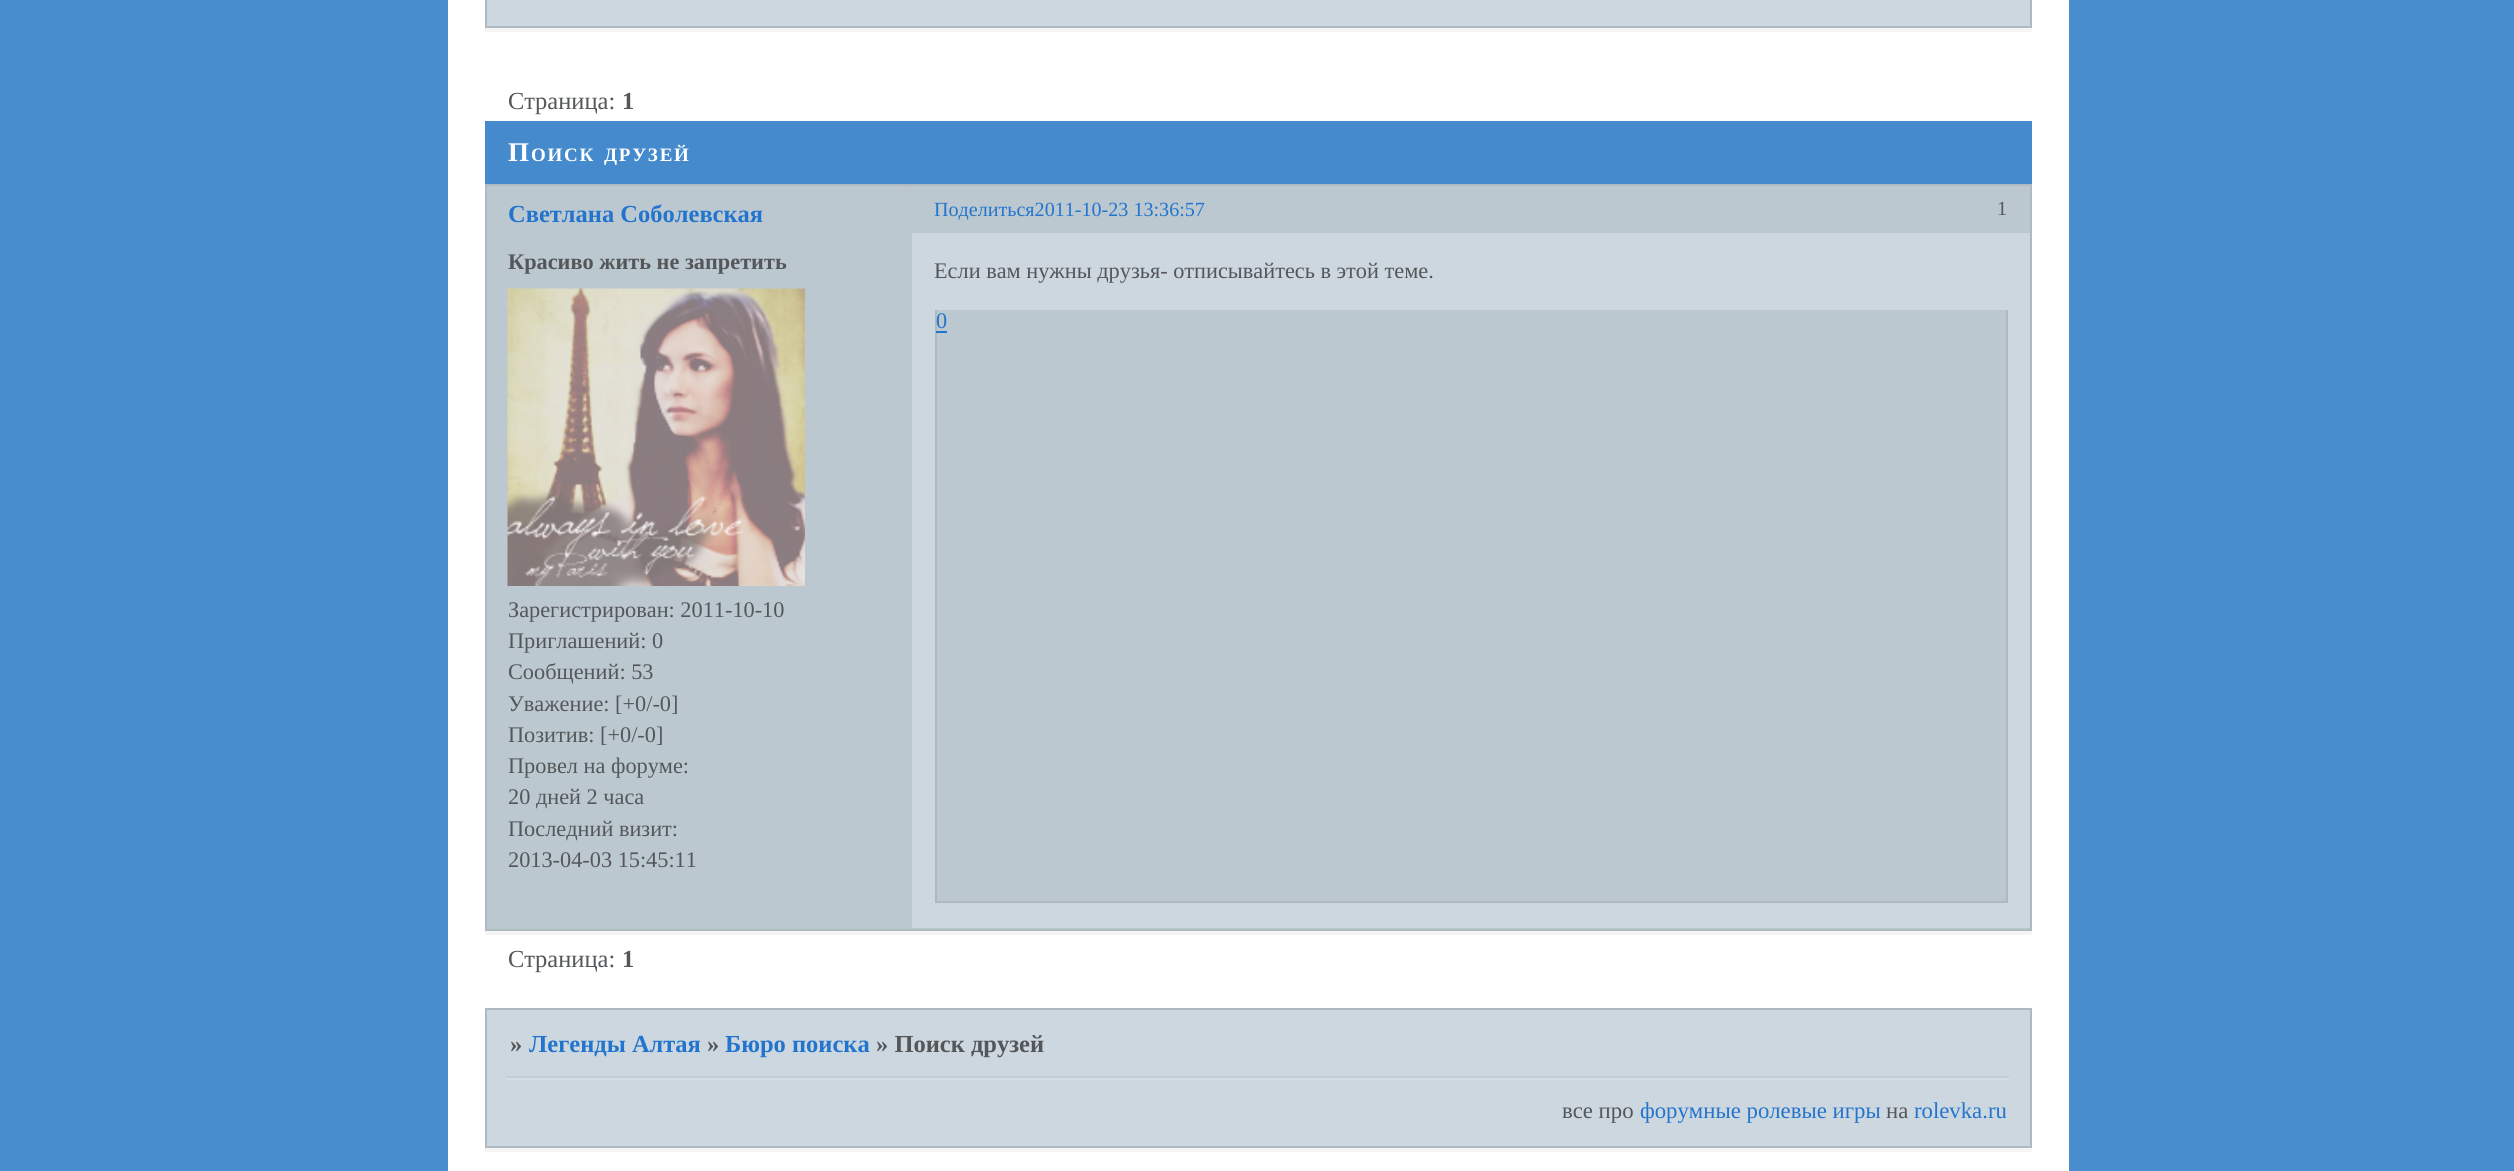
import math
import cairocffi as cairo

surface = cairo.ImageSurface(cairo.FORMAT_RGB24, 2514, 1171)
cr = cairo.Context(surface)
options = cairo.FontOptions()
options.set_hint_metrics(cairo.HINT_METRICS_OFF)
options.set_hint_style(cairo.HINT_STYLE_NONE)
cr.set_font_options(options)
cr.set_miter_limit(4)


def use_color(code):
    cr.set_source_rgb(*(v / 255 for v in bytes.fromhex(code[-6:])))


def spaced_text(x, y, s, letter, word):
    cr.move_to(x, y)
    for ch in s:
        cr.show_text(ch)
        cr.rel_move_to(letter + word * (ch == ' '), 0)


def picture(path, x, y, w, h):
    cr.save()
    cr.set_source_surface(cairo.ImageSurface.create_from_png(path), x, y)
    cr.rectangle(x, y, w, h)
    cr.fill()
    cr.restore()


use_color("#488dce")
cr.paint()
use_color("#ffffff")
cr.rectangle(448, 0, 1621, 1171)
cr.fill()
use_color("#f5f5f5")
cr.rectangle(485, 28, 1547, 4)
cr.fill()
use_color("#cdd7df")
cr.rectangle(487, 0, 1543, 26)
cr.fill()
use_color("#afb9c0")
cr.rectangle(2030, 0, 2, 28)
cr.fill()
cr.rectangle(485, 26, 1547, 2)
cr.fill()
cr.rectangle(485, 0, 2, 28)
cr.fill()
cr.select_font_face("Liberation Serif")
cr.set_font_size(24.5)
use_color("#545759")
cr.move_to(508, 109)
cr.show_text("Страница:")
cr.select_font_face("Liberation Serif", cairo.FONT_SLANT_NORMAL, cairo.FONT_WEIGHT_BOLD)
cr.move_to(622, 109)
cr.show_text("1")
use_color("#458acd")
cr.rectangle(485, 121, 1547, 63)
cr.fill()
cr.set_font_size(27)
use_color("#ffffff")
spaced_text(508, 161, "П", 1.75, 0)
cr.set_font_size(19)
spaced_text(531, 161, "ОИСК", 1.75, 0)
spaced_text(604, 161, "ДРУЗЕЙ", 1.75, 0)
use_color("#f5f5f5")
cr.rectangle(485, 931, 1547, 4)
cr.fill()
use_color("#bcc8d0")
cr.rectangle(487, 186, 1543, 47)
cr.fill()
use_color("#afb9c0")
cr.rectangle(485, 184, 1547, 2)
cr.fill()
cr.rectangle(2030, 184, 2, 747)
cr.fill()
cr.rectangle(485, 184, 2, 51)
cr.fill()
use_color("#bec6cd")
cr.rectangle(910, 186, 2, 49)
cr.fill()
cr.select_font_face("Liberation Serif")
cr.set_font_size(20.1)
use_color("#2274cd")
cr.move_to(934, 216)
cr.show_text("Поделиться2011-10-23 13:36:57")
use_color("#545759")
cr.move_to(1997, 215)
cr.show_text("1")
use_color("#bcc8d0")
cr.rectangle(487, 233, 1543, 696)
cr.fill()
use_color("#afb9c0")
cr.rectangle(485, 929, 1547, 2)
cr.fill()
cr.rectangle(485, 233, 2, 698)
cr.fill()
cr.select_font_face("Liberation Serif", cairo.FONT_SLANT_NORMAL, cairo.FONT_WEIGHT_BOLD)
cr.set_font_size(24.5)
use_color("#2274cd")
cr.move_to(508, 222)
cr.show_text("Светлана Соболевская")
cr.set_font_size(22.3)
use_color("#545759")
cr.move_to(508, 269)
cr.show_text("Красиво жить не запретить")
picture("img1.png", 507, 288, 298, 298)
cr.select_font_face("Liberation Serif")
cr.move_to(508, 617)
cr.show_text("Зарегистрирован: 2011-10-10")
cr.move_to(508, 648)
cr.show_text("Приглашений: 0")
cr.move_to(508, 679)
cr.show_text("Сообщений: 53")
cr.move_to(508, 711)
cr.show_text("Уважение: [+0/-0]")
cr.move_to(508, 742)
cr.show_text("Позитив: [+0/-0]")
cr.move_to(508, 773)
cr.show_text("Провел на форуме:")
cr.move_to(508, 804)
cr.show_text("20 дней 2 часа")
cr.move_to(508, 836)
cr.show_text("Последний визит:")
cr.move_to(508, 867)
cr.show_text("2013-04-03 15:45:11")
use_color("#cdd7df")
cr.rectangle(912, 233, 1118, 695)
cr.fill()
use_color("#bec6cd")
cr.rectangle(910, 233, 2, 695)
cr.fill()
use_color("#545759")
cr.move_to(934, 278)
cr.show_text("Если вам нужны друзья- отписывайтесь в этой теме.")
use_color("#bcc8d0")
cr.rectangle(937, 310, 1069, 591)
cr.fill()
use_color("#afb9c0")
cr.rectangle(2006, 310, 2, 593)
cr.fill()
cr.rectangle(935, 901, 1072, 2)
cr.fill()
cr.rectangle(935, 310, 2, 593)
cr.fill()
use_color("#2274cd")
cr.move_to(936, 328)
cr.show_text("0")
cr.rectangle(936, 331, 11, 2)
cr.fill()
cr.set_font_size(24.5)
use_color("#545759")
cr.move_to(508, 967)
cr.show_text("Страница:")
cr.select_font_face("Liberation Serif", cairo.FONT_SLANT_NORMAL, cairo.FONT_WEIGHT_BOLD)
cr.move_to(622, 967)
cr.show_text("1")
use_color("#afb9c0")
cr.rectangle(485, 1008, 1547, 2)
cr.fill()
cr.rectangle(2030, 1076, 2, 72)
cr.fill()
cr.rectangle(2030, 1008, 2, 72)
cr.fill()
cr.rectangle(485, 1146, 1547, 2)
cr.fill()
cr.rectangle(485, 1076, 2, 72)
cr.fill()
cr.rectangle(485, 1008, 2, 72)
cr.fill()
use_color("#cdd7df")
cr.rectangle(487, 1010, 1543, 136)
cr.fill()
use_color("#545759")
cr.move_to(510, 1052)
cr.show_text("»")
use_color("#2274cd")
cr.move_to(529, 1052)
cr.show_text("Легенды Алтая")
use_color("#545759")
cr.move_to(707, 1052)
cr.show_text("»")
use_color("#2274cd")
cr.move_to(725, 1052)
cr.show_text("Бюро поиска")
use_color("#545759")
cr.move_to(876, 1052)
cr.show_text("» Поиск друзей")
use_color("#c5ced6")
cr.rectangle(506, 1076, 1503, 2)
cr.fill()
use_color("#d3dde5")
cr.rectangle(506, 1078, 1503, 2)
cr.fill()
use_color("#f5f5f5")
cr.rectangle(485, 1148, 1547, 4)
cr.fill()
cr.select_font_face("Liberation Serif")
cr.set_font_size(22.75)
use_color("#545759")
cr.move_to(1562, 1118)
cr.show_text("все про")
use_color("#2274cd")
cr.move_to(1640, 1118)
cr.show_text("форумные ролевые игры")
use_color("#545759")
cr.move_to(1886, 1118)
cr.show_text("на")
use_color("#2274cd")
cr.move_to(1914, 1118)
cr.show_text("rolevka.ru")
surface.write_to_png("result.png")
